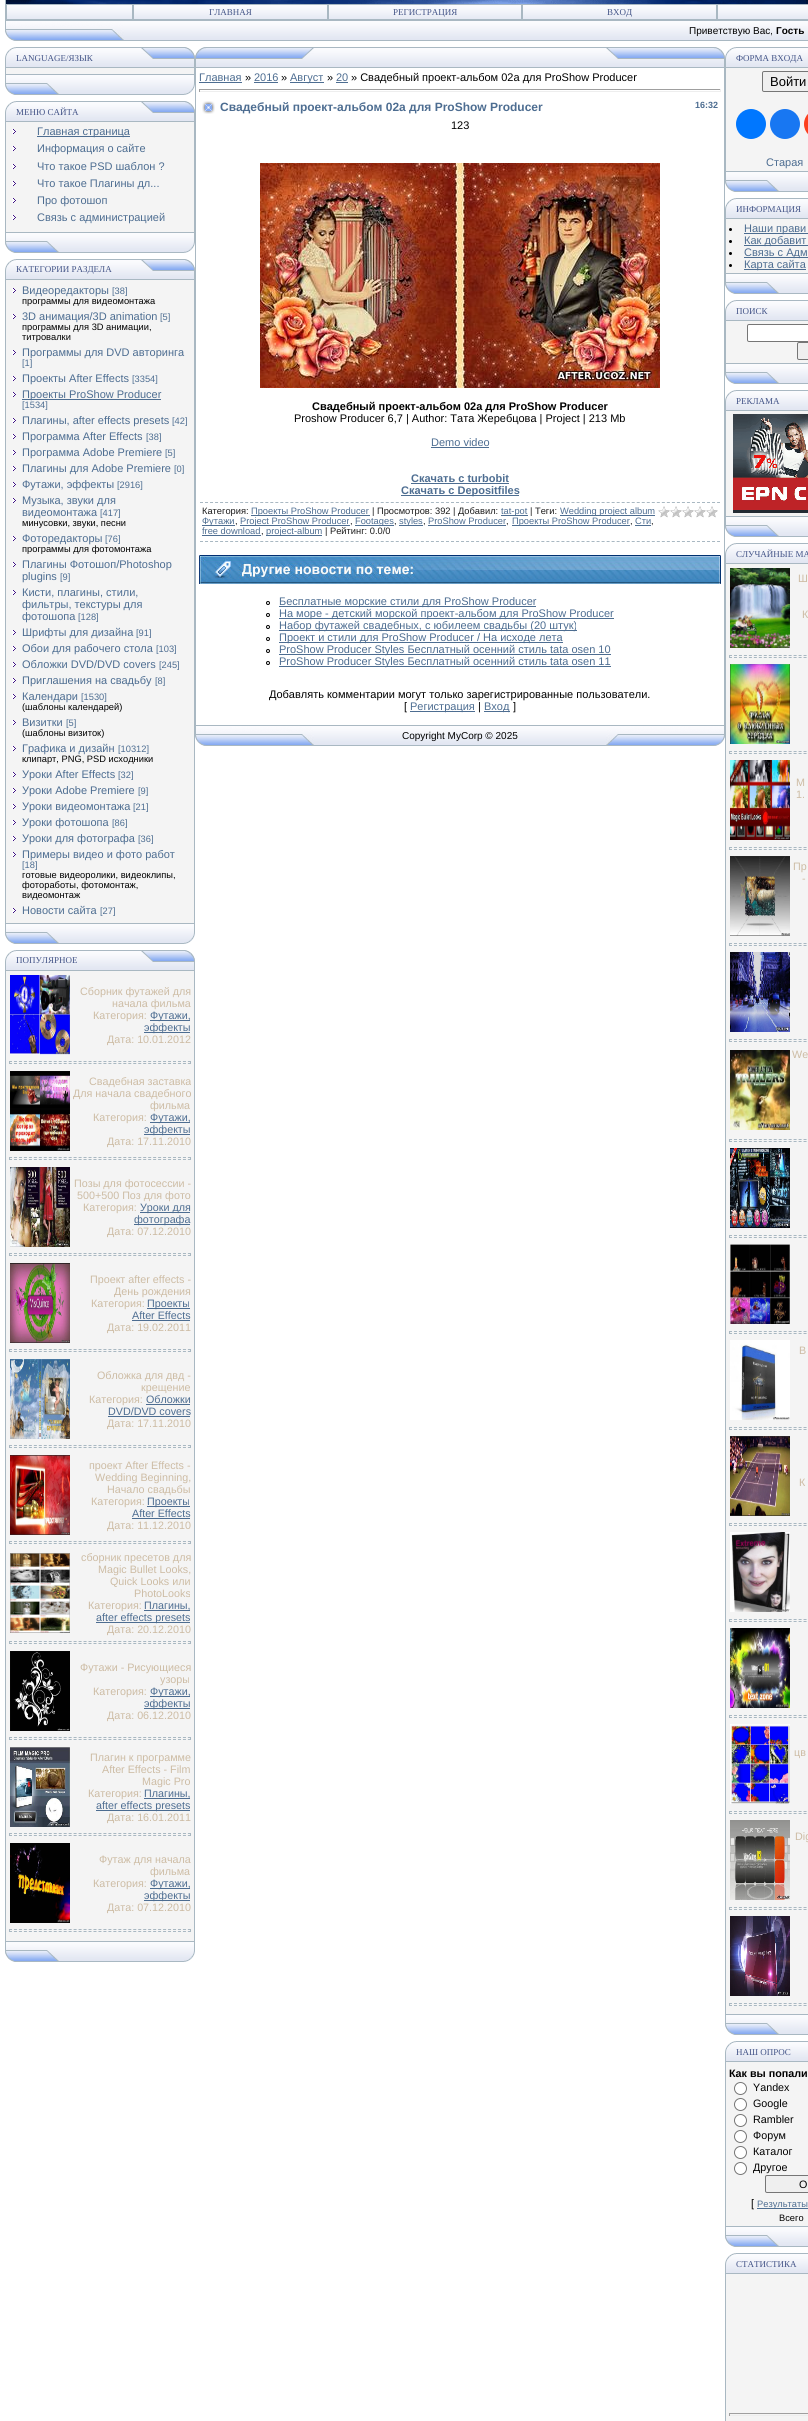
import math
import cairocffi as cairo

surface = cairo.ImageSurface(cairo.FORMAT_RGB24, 808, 2421)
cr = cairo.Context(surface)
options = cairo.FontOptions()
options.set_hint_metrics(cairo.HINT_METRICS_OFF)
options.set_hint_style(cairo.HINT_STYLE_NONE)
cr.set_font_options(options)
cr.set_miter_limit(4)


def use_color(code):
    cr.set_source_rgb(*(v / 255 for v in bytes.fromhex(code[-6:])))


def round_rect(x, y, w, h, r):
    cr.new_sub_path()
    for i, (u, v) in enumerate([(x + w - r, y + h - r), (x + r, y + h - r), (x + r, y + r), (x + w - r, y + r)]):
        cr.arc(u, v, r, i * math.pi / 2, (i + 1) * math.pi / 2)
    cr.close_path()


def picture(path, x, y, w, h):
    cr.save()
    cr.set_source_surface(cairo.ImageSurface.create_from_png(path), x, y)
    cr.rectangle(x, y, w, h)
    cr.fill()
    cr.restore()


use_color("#ffffff")
cr.paint()
use_color("#a9b8c2")
cr.rectangle(5, 0, 1, 20)
cr.fill()
picture("img1.png", 6, 0, 802, 4)
picture("img2.png", 7, 5, 125, 14)
cr.rectangle(6.5, 4.5, 126, 15)
cr.set_line_width(1)
cr.stroke()
picture("img3.png", 134, 5, 193, 14)
cr.rectangle(133.5, 4.5, 194, 15)
cr.stroke()
cr.select_font_face("Liberation Serif")
cr.set_font_size(9)
use_color("#445588")
cr.move_to(209, 15)
cr.show_text("ГЛАВНАЯ")
picture("img4.png", 329, 5, 192, 14)
cr.rectangle(328.5, 4.5, 193, 15)
use_color("#a9b8c2")
cr.stroke()
use_color("#445588")
cr.move_to(393, 15)
cr.show_text("РЕГИСТРАЦИЯ")
picture("img3.png", 523, 5, 193, 14)
cr.rectangle(522.5, 4.5, 194, 15)
use_color("#a9b8c2")
cr.stroke()
use_color("#445588")
cr.move_to(607, 15)
cr.show_text("ВХОД")
picture("img5.png", 718, 5, 90, 14)
cr.rectangle(717.5, 4.5, 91, 15)
use_color("#a9b8c2")
cr.stroke()
picture("img6.png", 5, 20, 119, 21)
picture("img7.png", 124, 20, 684, 21)
cr.select_font_face("Liberation Sans")
cr.set_font_size(10)
use_color("#000000")
cr.move_to(689, 34)
cr.show_text("Приветствую Вас,")
cr.select_font_face("Liberation Sans", cairo.FONT_SLANT_NORMAL, cairo.FONT_WEIGHT_BOLD)
cr.move_to(776, 34)
cr.show_text("Гость")
picture("img8.png", 5, 47, 11, 21)
picture("img9.png", 16, 47, 125, 21)
cr.select_font_face("Liberation Serif")
cr.set_font_size(9)
use_color("#445588")
cr.move_to(16, 61)
cr.show_text("LANGUAGE/ЯЗЫК")
picture("img10.png", 141, 47, 54, 21)
use_color("#f4f4f4")
cr.rectangle(5, 68, 190, 6)
cr.fill()
use_color("#a9b8c2")
cr.rectangle(194, 68, 1, 6)
cr.fill()
cr.rectangle(5, 68, 1, 6)
cr.fill()
picture("img11.png", 5, 74, 190, 21)
picture("img8.png", 5, 101, 11, 21)
picture("img9.png", 16, 101, 125, 21)
use_color("#445588")
cr.move_to(16, 115)
cr.show_text("МЕНЮ САЙТА")
picture("img10.png", 141, 101, 54, 21)
use_color("#f4f4f4")
cr.rectangle(6, 122, 188, 110)
cr.fill()
use_color("#a9b8c2")
cr.rectangle(194, 122, 1, 110)
cr.fill()
cr.rectangle(5, 122, 1, 110)
cr.fill()
picture("img12.png", 12, 129, 4, 5)
use_color("#4d6d91")
cr.rectangle(37, 136, 93, 1)
cr.fill()
cr.select_font_face("Liberation Sans")
cr.set_font_size(11)
cr.move_to(37, 135)
cr.show_text("Главная страница")
picture("img12.png", 12, 146, 4, 5)
cr.move_to(37, 152)
cr.show_text("Информация о сайте")
picture("img12.png", 12, 164, 4, 5)
cr.move_to(37, 170)
cr.show_text("Что такое PSD шаблон ?")
picture("img12.png", 12, 181, 4, 5)
cr.move_to(37, 187)
cr.show_text("Что такое Плагины дл...")
picture("img12.png", 12, 198, 4, 5)
cr.move_to(37, 204)
cr.show_text("Про фотошоп")
picture("img12.png", 12, 215, 4, 5)
cr.move_to(37, 221)
cr.show_text("Связь с администрацией")
picture("img11.png", 5, 232, 190, 21)
picture("img8.png", 5, 259, 11, 21)
picture("img9.png", 16, 259, 125, 21)
cr.select_font_face("Liberation Serif")
cr.set_font_size(9)
use_color("#445588")
cr.move_to(16, 272)
cr.show_text("КАТЕГОРИИ РАЗДЕЛА")
picture("img10.png", 141, 259, 54, 21)
use_color("#f4f4f4")
cr.rectangle(6, 280, 188, 643)
cr.fill()
use_color("#a9b8c2")
cr.rectangle(194, 280, 1, 643)
cr.fill()
cr.rectangle(5, 280, 1, 643)
cr.fill()
picture("img12.png", 12, 288, 4, 5)
cr.select_font_face("Liberation Sans")
cr.set_font_size(11)
use_color("#4d6d91")
cr.move_to(22, 294)
cr.show_text("Видеоредакторы")
cr.set_font_size(9.3)
cr.move_to(112, 294)
cr.show_text("[38]")
use_color("#000000")
cr.move_to(22, 304)
cr.show_text("программы для видеомонтажа")
picture("img12.png", 12, 314, 4, 5)
cr.set_font_size(11)
use_color("#4d6d91")
cr.move_to(22, 320)
cr.show_text("3D анимация/3D animation")
cr.set_font_size(9.3)
cr.move_to(160, 320)
cr.show_text("[5]")
use_color("#000000")
cr.move_to(22, 330)
cr.show_text("программы для 3D анимации,")
cr.move_to(22, 340)
cr.show_text("титровалки")
picture("img12.png", 12, 350, 4, 5)
cr.set_font_size(11)
use_color("#4d6d91")
cr.move_to(22, 356)
cr.show_text("Программы для DVD авторинга")
cr.set_font_size(9.3)
cr.move_to(22, 366)
cr.show_text("[1]")
picture("img12.png", 12, 376, 4, 5)
cr.set_font_size(11)
cr.move_to(22, 382)
cr.show_text("Проекты After Effects")
cr.set_font_size(9.3)
cr.move_to(132, 382)
cr.show_text("[3354]")
picture("img12.png", 12, 392, 4, 5)
cr.rectangle(22, 399, 139, 1)
cr.fill()
cr.set_font_size(11)
cr.move_to(22, 398)
cr.show_text("Проекты ProShow Producer")
cr.set_font_size(9.3)
cr.move_to(22, 408)
cr.show_text("[1534]")
picture("img12.png", 12, 418, 4, 5)
cr.set_font_size(11)
cr.move_to(22, 424)
cr.show_text("Плагины, after effects presets")
cr.set_font_size(9.3)
cr.move_to(172, 424)
cr.show_text("[42]")
picture("img12.png", 12, 434, 4, 5)
cr.set_font_size(11)
cr.move_to(22, 440)
cr.show_text("Программа After Effects")
cr.set_font_size(9.3)
cr.move_to(146, 440)
cr.show_text("[38]")
picture("img12.png", 12, 450, 4, 5)
cr.set_font_size(11)
cr.move_to(22, 456)
cr.show_text("Программа Adobe Premiere")
cr.set_font_size(9.3)
cr.move_to(165, 456)
cr.show_text("[5]")
picture("img12.png", 12, 466, 4, 5)
cr.set_font_size(11)
cr.move_to(22, 472)
cr.show_text("Плагины для Adobe Premiere")
cr.set_font_size(9.3)
cr.move_to(174, 472)
cr.show_text("[0]")
picture("img12.png", 12, 482, 4, 5)
cr.set_font_size(11)
cr.move_to(22, 488)
cr.show_text("Футажи, эффекты")
cr.set_font_size(9.3)
cr.move_to(117, 488)
cr.show_text("[2916]")
picture("img12.png", 12, 498, 4, 5)
cr.set_font_size(11)
cr.move_to(22, 504)
cr.show_text("Музыка, звуки для")
cr.move_to(22, 516)
cr.show_text("видеомонтажа")
cr.set_font_size(9.3)
cr.move_to(100, 516)
cr.show_text("[417]")
use_color("#000000")
cr.move_to(22, 526)
cr.show_text("минусовки, звуки, песни")
picture("img12.png", 12, 536, 4, 5)
cr.set_font_size(11)
use_color("#4d6d91")
cr.move_to(22, 542)
cr.show_text("Фоторедакторы")
cr.set_font_size(9.3)
cr.move_to(105, 542)
cr.show_text("[76]")
use_color("#000000")
cr.move_to(22, 552)
cr.show_text("программы для фотомонтажа")
picture("img12.png", 12, 562, 4, 5)
cr.set_font_size(11)
use_color("#4d6d91")
cr.move_to(22, 568)
cr.show_text("Плагины Фотошоп/Photoshop")
cr.move_to(22, 580)
cr.show_text("plugins")
cr.set_font_size(9.3)
cr.move_to(60, 580)
cr.show_text("[9]")
picture("img12.png", 12, 590, 4, 5)
cr.set_font_size(11)
cr.move_to(22, 596)
cr.show_text("Кисти, плагины, стили,")
cr.move_to(22, 608)
cr.show_text("фильтры, текстуры для")
cr.move_to(22, 620)
cr.show_text("фотошопа")
cr.set_font_size(9.3)
cr.move_to(78, 620)
cr.show_text("[128]")
picture("img12.png", 12, 630, 4, 5)
cr.set_font_size(11)
cr.move_to(22, 636)
cr.show_text("Шрифты для дизайна")
cr.set_font_size(9.3)
cr.move_to(136, 636)
cr.show_text("[91]")
picture("img12.png", 12, 646, 4, 5)
cr.set_font_size(11)
cr.move_to(22, 652)
cr.show_text("Обои для рабочего стола")
cr.set_font_size(9.3)
cr.move_to(156, 652)
cr.show_text("[103]")
picture("img12.png", 12, 662, 4, 5)
cr.set_font_size(11)
cr.move_to(22, 668)
cr.show_text("Обложки DVD/DVD covers")
cr.set_font_size(9.3)
cr.move_to(159, 668)
cr.show_text("[245]")
picture("img12.png", 12, 678, 4, 5)
cr.set_font_size(11)
cr.move_to(22, 684)
cr.show_text("Приглашения на свадьбу")
cr.set_font_size(9.3)
cr.move_to(155, 684)
cr.show_text("[8]")
picture("img12.png", 12, 694, 4, 5)
cr.set_font_size(11)
cr.move_to(22, 700)
cr.show_text("Календари")
cr.set_font_size(9.3)
cr.move_to(81, 700)
cr.show_text("[1530]")
use_color("#000000")
cr.move_to(22, 710)
cr.show_text("(шаблоны календарей)")
picture("img12.png", 12, 720, 4, 5)
cr.set_font_size(11)
use_color("#4d6d91")
cr.move_to(22, 726)
cr.show_text("Визитки")
cr.set_font_size(9.3)
cr.move_to(66, 726)
cr.show_text("[5]")
use_color("#000000")
cr.move_to(22, 736)
cr.show_text("(шаблоны визиток)")
picture("img12.png", 12, 746, 4, 5)
cr.set_font_size(11)
use_color("#4d6d91")
cr.move_to(22, 752)
cr.show_text("Графика и дизайн")
cr.set_font_size(9.3)
cr.move_to(118, 752)
cr.show_text("[10312]")
use_color("#000000")
cr.move_to(22, 762)
cr.show_text("клипарт, PNG, PSD исходники")
picture("img12.png", 12, 772, 4, 5)
cr.set_font_size(11)
use_color("#4d6d91")
cr.move_to(22, 778)
cr.show_text("Уроки After Effects")
cr.set_font_size(9.3)
cr.move_to(118, 778)
cr.show_text("[32]")
picture("img12.png", 12, 788, 4, 5)
cr.set_font_size(11)
cr.move_to(22, 794)
cr.show_text("Уроки Adobe Premiere")
cr.set_font_size(9.3)
cr.move_to(138, 794)
cr.show_text("[9]")
picture("img12.png", 12, 804, 4, 5)
cr.set_font_size(11)
cr.move_to(22, 810)
cr.show_text("Уроки видеомонтажа")
cr.set_font_size(9.3)
cr.move_to(133, 810)
cr.show_text("[21]")
picture("img12.png", 12, 820, 4, 5)
cr.set_font_size(11)
cr.move_to(22, 826)
cr.show_text("Уроки фотошопа")
cr.set_font_size(9.3)
cr.move_to(112, 826)
cr.show_text("[86]")
picture("img12.png", 12, 836, 4, 5)
cr.set_font_size(11)
cr.move_to(22, 842)
cr.show_text("Уроки для фотографа")
cr.set_font_size(9.3)
cr.move_to(138, 842)
cr.show_text("[36]")
picture("img12.png", 12, 852, 4, 5)
cr.set_font_size(11)
cr.move_to(22, 858)
cr.show_text("Примеры видео и фото работ")
cr.set_font_size(9.3)
cr.move_to(22, 868)
cr.show_text("[18]")
use_color("#000000")
cr.move_to(22, 878)
cr.show_text("готовые видеоролики, видеоклипы,")
cr.move_to(22, 888)
cr.show_text("фотоработы, фотомонтаж,")
cr.move_to(22, 898)
cr.show_text("видеомонтаж")
picture("img12.png", 12, 908, 4, 5)
cr.set_font_size(11)
use_color("#4d6d91")
cr.move_to(22, 914)
cr.show_text("Новости сайта")
cr.set_font_size(9.3)
cr.move_to(100, 914)
cr.show_text("[27]")
picture("img11.png", 5, 923, 190, 21)
picture("img8.png", 5, 950, 11, 21)
picture("img9.png", 16, 950, 125, 21)
cr.select_font_face("Liberation Serif")
cr.set_font_size(9)
use_color("#445588")
cr.move_to(16, 963)
cr.show_text("ПОПУЛЯРНОЕ")
picture("img10.png", 141, 950, 54, 21)
use_color("#f4f4f4")
cr.rectangle(6, 971, 188, 970)
cr.fill()
use_color("#a9b8c2")
cr.rectangle(194, 971, 1, 970)
cr.fill()
cr.rectangle(5, 971, 1, 970)
cr.fill()
picture("img13.png", 10, 975, 60, 80)
cr.select_font_face("Liberation Sans")
cr.set_font_size(10.75)
use_color("#cdbca4")
cr.move_to(80, 995)
cr.show_text("Сборник футажей для")
cr.move_to(112, 1007)
cr.show_text("начала фильма")
cr.move_to(93, 1019)
cr.show_text("Категория:")
use_color("#4d6d91")
cr.rectangle(150, 1020, 40, 1)
cr.fill()
cr.move_to(150, 1019)
cr.show_text("Футажи,")
cr.rectangle(144, 1032, 46, 1)
cr.fill()
cr.move_to(144, 1031)
cr.show_text("эффекты")
use_color("#cdbca4")
cr.move_to(107, 1043)
cr.show_text("Дата: 10.01.2012")
cr.new_path()
cr.move_to(9, 1061.5)
cr.line_to(191, 1061.5)
use_color("#a9b8c2")
cr.set_dash([3, 1.97])
cr.stroke()
cr.rectangle(190, 1061, 1, 3)
cr.fill()
cr.new_path()
cr.move_to(9, 1063.5)
cr.line_to(191, 1063.5)
cr.stroke()
cr.rectangle(9, 1061, 1, 3)
cr.fill()
picture("img14.png", 10, 1071, 60, 80)
use_color("#cdbca4")
cr.move_to(89, 1085)
cr.show_text("Свадебная заставка")
cr.move_to(73, 1097)
cr.show_text("Для начала свадебного")
cr.move_to(150, 1109)
cr.show_text("фильма")
cr.move_to(93, 1121)
cr.show_text("Категория:")
use_color("#4d6d91")
cr.rectangle(150, 1122, 40, 1)
cr.fill()
cr.move_to(150, 1121)
cr.show_text("Футажи,")
cr.rectangle(144, 1134, 46, 1)
cr.fill()
cr.move_to(144, 1133)
cr.show_text("эффекты")
use_color("#cdbca4")
cr.move_to(107, 1145)
cr.show_text("Дата: 17.11.2010")
cr.new_path()
cr.move_to(9, 1157.5)
cr.line_to(191, 1157.5)
use_color("#a9b8c2")
cr.stroke()
cr.rectangle(190, 1157, 1, 3)
cr.fill()
cr.new_path()
cr.move_to(9, 1159.5)
cr.line_to(191, 1159.5)
cr.stroke()
cr.rectangle(9, 1157, 1, 3)
cr.fill()
picture("img15.png", 10, 1167, 60, 80)
use_color("#cdbca4")
cr.move_to(74, 1187)
cr.show_text("Позы для фотосессии -")
cr.move_to(77, 1199)
cr.show_text("500+500 Поз для фото")
cr.move_to(83, 1211)
cr.show_text("Категория:")
use_color("#4d6d91")
cr.rectangle(140, 1212, 50, 1)
cr.fill()
cr.move_to(140, 1211)
cr.show_text("Уроки для")
cr.rectangle(134, 1224, 56, 1)
cr.fill()
cr.move_to(134, 1223)
cr.show_text("фотографа")
use_color("#cdbca4")
cr.move_to(107, 1235)
cr.show_text("Дата: 07.12.2010")
cr.new_path()
cr.move_to(9, 1253.5)
cr.line_to(191, 1253.5)
use_color("#a9b8c2")
cr.stroke()
cr.rectangle(190, 1253, 1, 3)
cr.fill()
cr.new_path()
cr.move_to(9, 1255.5)
cr.line_to(191, 1255.5)
cr.stroke()
cr.rectangle(9, 1253, 1, 3)
cr.fill()
picture("img16.png", 10, 1263, 60, 80)
use_color("#cdbca4")
cr.move_to(90, 1283)
cr.show_text("Проект after effects -")
cr.move_to(114, 1295)
cr.show_text("День рождения")
cr.move_to(91, 1307)
cr.show_text("Категория:")
use_color("#4d6d91")
cr.rectangle(147, 1308, 43, 1)
cr.fill()
cr.move_to(147, 1307)
cr.show_text("Проекты")
cr.move_to(132, 1319)
cr.show_text("After Effects")
cr.rectangle(132, 1320, 58, 1)
cr.fill()
use_color("#cdbca4")
cr.move_to(107, 1331)
cr.show_text("Дата: 19.02.2011")
cr.new_path()
cr.move_to(9, 1349.5)
cr.line_to(191, 1349.5)
use_color("#a9b8c2")
cr.stroke()
cr.rectangle(190, 1349, 1, 3)
cr.fill()
cr.new_path()
cr.move_to(9, 1351.5)
cr.line_to(191, 1351.5)
cr.stroke()
cr.rectangle(9, 1349, 1, 3)
cr.fill()
picture("img17.png", 10, 1359, 60, 80)
use_color("#cdbca4")
cr.move_to(97, 1379)
cr.show_text("Обложка для двд -")
cr.move_to(141, 1391)
cr.show_text("крещение")
cr.move_to(89, 1403)
cr.show_text("Категория:")
use_color("#4d6d91")
cr.move_to(146, 1403)
cr.show_text("Обложки")
cr.rectangle(146, 1404, 44, 1)
cr.fill()
cr.move_to(108, 1415)
cr.show_text("DVD/DVD covers")
cr.rectangle(108, 1416, 82, 1)
cr.fill()
use_color("#cdbca4")
cr.move_to(107, 1427)
cr.show_text("Дата: 17.11.2010")
cr.new_path()
cr.move_to(9, 1445.5)
cr.line_to(191, 1445.5)
use_color("#a9b8c2")
cr.stroke()
cr.rectangle(190, 1445, 1, 3)
cr.fill()
cr.new_path()
cr.move_to(9, 1447.5)
cr.line_to(191, 1447.5)
cr.stroke()
cr.rectangle(9, 1445, 1, 3)
cr.fill()
picture("img18.png", 10, 1455, 60, 80)
use_color("#cdbca4")
cr.move_to(89, 1469)
cr.show_text("проект After Effects -")
cr.move_to(95, 1481)
cr.show_text("Wedding Beginning,")
cr.move_to(107, 1493)
cr.show_text("Начало свадьбы")
cr.move_to(91, 1505)
cr.show_text("Категория:")
use_color("#4d6d91")
cr.rectangle(147, 1506, 43, 1)
cr.fill()
cr.move_to(147, 1505)
cr.show_text("Проекты")
cr.move_to(132, 1517)
cr.show_text("After Effects")
cr.rectangle(132, 1518, 58, 1)
cr.fill()
use_color("#cdbca4")
cr.move_to(107, 1529)
cr.show_text("Дата: 11.12.2010")
cr.new_path()
cr.move_to(9, 1541.5)
cr.line_to(191, 1541.5)
use_color("#a9b8c2")
cr.stroke()
cr.rectangle(190, 1541, 1, 3)
cr.fill()
cr.new_path()
cr.move_to(9, 1543.5)
cr.line_to(191, 1543.5)
cr.stroke()
cr.rectangle(9, 1541, 1, 3)
cr.fill()
picture("img19.png", 10, 1553, 60, 80)
use_color("#cdbca4")
cr.move_to(81, 1561)
cr.show_text("сборник пресетов для")
cr.move_to(98, 1573)
cr.show_text("Magic Bullet Looks,")
cr.move_to(110, 1585)
cr.show_text("Quick Looks или")
cr.move_to(134, 1597)
cr.show_text("PhotoLooks")
cr.move_to(88, 1609)
cr.show_text("Категория:")
use_color("#4d6d91")
cr.rectangle(144, 1610, 46, 1)
cr.fill()
cr.move_to(144, 1609)
cr.show_text("Плагины,")
cr.rectangle(96, 1622, 94, 1)
cr.fill()
cr.move_to(96, 1621)
cr.show_text("after effects presets")
use_color("#cdbca4")
cr.move_to(107, 1633)
cr.show_text("Дата: 20.12.2010")
cr.new_path()
cr.move_to(9, 1641.5)
cr.line_to(191, 1641.5)
use_color("#a9b8c2")
cr.stroke()
cr.rectangle(190, 1641, 1, 3)
cr.fill()
cr.new_path()
cr.move_to(9, 1643.5)
cr.line_to(191, 1643.5)
cr.stroke()
cr.rectangle(9, 1641, 1, 3)
cr.fill()
picture("img20.png", 10, 1651, 60, 80)
use_color("#cdbca4")
cr.move_to(80, 1671)
cr.show_text("Футажи - Рисующиеся")
cr.move_to(160, 1683)
cr.show_text("узоры")
cr.move_to(93, 1695)
cr.show_text("Категория:")
use_color("#4d6d91")
cr.rectangle(150, 1696, 40, 1)
cr.fill()
cr.move_to(150, 1695)
cr.show_text("Футажи,")
cr.rectangle(144, 1708, 46, 1)
cr.fill()
cr.move_to(144, 1707)
cr.show_text("эффекты")
use_color("#cdbca4")
cr.move_to(107, 1719)
cr.show_text("Дата: 06.12.2010")
cr.new_path()
cr.move_to(9, 1737.5)
cr.line_to(191, 1737.5)
use_color("#a9b8c2")
cr.stroke()
cr.rectangle(190, 1737, 1, 3)
cr.fill()
cr.new_path()
cr.move_to(9, 1739.5)
cr.line_to(191, 1739.5)
cr.stroke()
cr.rectangle(9, 1737, 1, 3)
cr.fill()
picture("img21.png", 10, 1747, 60, 80)
use_color("#cdbca4")
cr.move_to(90, 1761)
cr.show_text("Плагин к программе")
cr.move_to(102, 1773)
cr.show_text("After Effects - Film")
cr.move_to(142, 1785)
cr.show_text("Magic Pro")
cr.move_to(88, 1797)
cr.show_text("Категория:")
use_color("#4d6d91")
cr.rectangle(144, 1798, 46, 1)
cr.fill()
cr.move_to(144, 1797)
cr.show_text("Плагины,")
cr.rectangle(96, 1810, 94, 1)
cr.fill()
cr.move_to(96, 1809)
cr.show_text("after effects presets")
use_color("#cdbca4")
cr.move_to(107, 1821)
cr.show_text("Дата: 16.01.2011")
cr.new_path()
cr.move_to(9, 1833.5)
cr.line_to(191, 1833.5)
use_color("#a9b8c2")
cr.stroke()
cr.rectangle(190, 1833, 1, 3)
cr.fill()
cr.new_path()
cr.move_to(9, 1835.5)
cr.line_to(191, 1835.5)
cr.stroke()
cr.rectangle(9, 1833, 1, 3)
cr.fill()
picture("img22.png", 10, 1843, 60, 80)
use_color("#cdbca4")
cr.move_to(99, 1863)
cr.show_text("Футаж для начала")
cr.move_to(150, 1875)
cr.show_text("фильма")
cr.move_to(93, 1887)
cr.show_text("Категория:")
use_color("#4d6d91")
cr.rectangle(150, 1888, 40, 1)
cr.fill()
cr.move_to(150, 1887)
cr.show_text("Футажи,")
cr.rectangle(144, 1900, 46, 1)
cr.fill()
cr.move_to(144, 1899)
cr.show_text("эффекты")
use_color("#cdbca4")
cr.move_to(107, 1911)
cr.show_text("Дата: 07.12.2010")
cr.new_path()
cr.move_to(9, 1929.5)
cr.line_to(191, 1929.5)
use_color("#a9b8c2")
cr.stroke()
cr.rectangle(190, 1929, 1, 3)
cr.fill()
cr.new_path()
cr.move_to(9, 1931.5)
cr.line_to(191, 1931.5)
cr.stroke()
cr.rectangle(9, 1929, 1, 3)
cr.fill()
picture("img11.png", 5, 1941, 190, 21)
picture("img23.png", 195, 47, 119, 21)
picture("img24.png", 314, 47, 292, 21)
picture("img25.png", 606, 47, 119, 21)
cr.rectangle(724, 68, 1, 657)
cr.fill()
cr.rectangle(195, 68, 1, 657)
cr.fill()
cr.set_font_size(11)
use_color("#4d6d91")
cr.move_to(199, 81)
cr.show_text("Главная")
cr.rectangle(199, 82, 43, 1)
cr.fill()
use_color("#000000")
cr.move_to(245, 81)
cr.show_text("»")
use_color("#4d6d91")
cr.move_to(254, 81)
cr.show_text("2016")
cr.rectangle(254, 82, 24, 1)
cr.fill()
use_color("#000000")
cr.move_to(281, 81)
cr.show_text("»")
use_color("#4d6d91")
cr.rectangle(290, 82, 34, 1)
cr.fill()
cr.move_to(290, 81)
cr.show_text("Август")
use_color("#000000")
cr.move_to(327, 81)
cr.show_text("»")
use_color("#4d6d91")
cr.move_to(336, 81)
cr.show_text("20")
cr.rectangle(336, 82, 12, 1)
cr.fill()
use_color("#000000")
cr.move_to(351, 81)
cr.show_text("» Свадебный проект-альбом 02а для ProShow Producer")
use_color("#9f9f9f")
cr.rectangle(199, 89, 522, 1)
cr.fill()
use_color("#eeeeee")
cr.rectangle(720, 89, 1, 3)
cr.fill()
cr.rectangle(199, 91, 522, 1)
cr.fill()
use_color("#9f9f9f")
cr.rectangle(199, 89, 1, 3)
cr.fill()
picture("img26.png", 202, 101, 13, 13)
cr.select_font_face("Liberation Sans", cairo.FONT_SLANT_NORMAL, cairo.FONT_WEIGHT_BOLD)
cr.set_font_size(12)
use_color("#4d6d91")
cr.move_to(220, 111)
cr.show_text("Свадебный проект-альбом 02а для ProShow Producer")
cr.set_font_size(9)
cr.move_to(695, 108)
cr.show_text("16:32")
cr.select_font_face("Liberation Sans")
cr.set_font_size(11)
use_color("#000000")
cr.move_to(451, 129)
cr.show_text("123")
picture("img27.png", 260, 163, 400, 225)
cr.select_font_face("Liberation Sans", cairo.FONT_SLANT_NORMAL, cairo.FONT_WEIGHT_BOLD)
cr.move_to(312, 410)
cr.show_text("Свадебный проект-альбом 02а для ProShow Producer")
cr.select_font_face("Liberation Sans")
cr.move_to(294, 422)
cr.show_text("Proshow Producer 6,7 | Author: Тата Жеребцова | Project | 213 Mb")
use_color("#4d6d91")
cr.move_to(431, 446)
cr.show_text("Demo video")
cr.rectangle(431, 447, 58, 1)
cr.fill()
cr.select_font_face("Liberation Sans", cairo.FONT_SLANT_NORMAL, cairo.FONT_WEIGHT_BOLD)
cr.move_to(411, 482)
cr.show_text("Скачать с turbobit")
cr.rectangle(411, 483, 98, 1)
cr.fill()
cr.rectangle(401, 495, 118, 1)
cr.fill()
cr.move_to(401, 494)
cr.show_text("Скачать с Depositfiles")
cr.new_path()
cr.move_to(200, 502.5)
cr.line_to(720, 502.5)
use_color("#a9b8c2")
cr.set_dash([3, 2.02])
cr.stroke()
cr.new_path()
cr.move_to(200, 541.5)
cr.line_to(720, 541.5)
cr.stroke()
cr.select_font_face("Liberation Sans")
cr.set_font_size(9.3)
use_color("#1a1a1a")
cr.move_to(202, 514)
cr.show_text("Категория:")
use_color("#4d6d91")
cr.rectangle(251, 515, 119, 1)
cr.fill()
cr.move_to(251, 514)
cr.show_text("Проекты ProShow Producer")
use_color("#1a1a1a")
cr.move_to(372, 514)
cr.show_text("| Просмотров: 392 | Добавил:")
use_color("#4d6d91")
cr.rectangle(501, 515, 27, 1)
cr.fill()
cr.move_to(501, 514)
cr.show_text("tat-pot")
use_color("#1a1a1a")
cr.move_to(530, 514)
cr.show_text("| Теги:")
use_color("#4d6d91")
cr.rectangle(560, 515, 95, 1)
cr.fill()
cr.move_to(560, 514)
cr.show_text("Wedding project album")
picture("img28.png", 658, 506, 60, 12)
cr.rectangle(202, 525, 33, 1)
cr.fill()
cr.move_to(202, 524)
cr.show_text("Футажи")
use_color("#1a1a1a")
cr.move_to(235, 524)
cr.show_text(",")
use_color("#4d6d91")
cr.rectangle(240, 525, 110, 1)
cr.fill()
cr.move_to(240, 524)
cr.show_text("Project ProShow Producer")
use_color("#1a1a1a")
cr.move_to(350, 524)
cr.show_text(",")
use_color("#4d6d91")
cr.rectangle(355, 525, 39, 1)
cr.fill()
cr.move_to(355, 524)
cr.show_text("Footages")
use_color("#1a1a1a")
cr.move_to(394, 524)
cr.show_text(",")
use_color("#4d6d91")
cr.rectangle(399, 525, 24, 1)
cr.fill()
cr.move_to(399, 524)
cr.show_text("styles")
use_color("#1a1a1a")
cr.move_to(423, 524)
cr.show_text(",")
use_color("#4d6d91")
cr.move_to(428, 524)
cr.show_text("ProShow Producer")
use_color("#1a1a1a")
cr.move_to(506, 524)
cr.show_text(",")
use_color("#4d6d91")
cr.rectangle(428, 525, 78, 1)
cr.fill()
cr.rectangle(512, 525, 118, 1)
cr.fill()
cr.move_to(512, 524)
cr.show_text("Проекты ProShow Producer")
use_color("#1a1a1a")
cr.move_to(630, 524)
cr.show_text(",")
use_color("#4d6d91")
cr.move_to(635, 524)
cr.show_text("Сти")
use_color("#1a1a1a")
cr.move_to(651, 524)
cr.show_text(",")
use_color("#4d6d91")
cr.rectangle(635, 525, 16, 1)
cr.fill()
cr.move_to(202, 534)
cr.show_text("free download")
use_color("#1a1a1a")
cr.move_to(261, 534)
cr.show_text(",")
use_color("#4d6d91")
cr.rectangle(202, 535, 59, 1)
cr.fill()
cr.rectangle(266, 535, 56, 1)
cr.fill()
cr.move_to(266, 534)
cr.show_text("project-album")
use_color("#1a1a1a")
cr.move_to(325, 534)
cr.show_text("| Рейтинг: 0.0/0")
picture("img29.png", 199, 555, 522, 29)
cr.arc(268, 603, 1.5, 0, 2 * math.pi)
use_color("#000000")
cr.set_dash([])
cr.stroke()
use_color("#4d6d91")
cr.rectangle(279, 606, 257, 1)
cr.fill()
cr.set_font_size(11)
cr.move_to(279, 605)
cr.show_text("Бесплатные морские стили для ProShow Producer")
cr.new_path()
cr.arc(268, 615, 1.5, 0, 2 * math.pi)
use_color("#000000")
cr.stroke()
use_color("#4d6d91")
cr.rectangle(279, 618, 335, 1)
cr.fill()
cr.move_to(279, 617)
cr.show_text("На море - детский морской проект-альбом для ProShow Producer")
cr.new_path()
cr.arc(268, 627, 1.5, 0, 2 * math.pi)
use_color("#000000")
cr.stroke()
use_color("#4d6d91")
cr.rectangle(279, 630, 298, 1)
cr.fill()
cr.move_to(279, 629)
cr.show_text("Набор футажей свадебных, с юбилеем свадьбы (20 штук)")
cr.new_path()
cr.arc(268, 639, 1.5, 0, 2 * math.pi)
use_color("#000000")
cr.stroke()
use_color("#4d6d91")
cr.rectangle(279, 642, 284, 1)
cr.fill()
cr.move_to(279, 641)
cr.show_text("Проект и стили для ProShow Producer / На исходе лета")
cr.new_path()
cr.arc(268, 651, 1.5, 0, 2 * math.pi)
use_color("#000000")
cr.stroke()
use_color("#4d6d91")
cr.rectangle(279, 654, 332, 1)
cr.fill()
cr.move_to(279, 653)
cr.show_text("ProShow Producer Styles Бесплатный осенний стиль tata osen 10")
cr.new_path()
cr.arc(268, 663, 1.5, 0, 2 * math.pi)
use_color("#000000")
cr.stroke()
use_color("#4d6d91")
cr.rectangle(279, 666, 332, 1)
cr.fill()
cr.move_to(279, 665)
cr.show_text("ProShow Producer Styles Бесплатный осенний стиль tata osen 11")
use_color("#000000")
cr.move_to(269, 698)
cr.show_text("Добавлять комментарии могут только зарегистрированные пользователи.")
cr.move_to(404, 710)
cr.show_text("[")
use_color("#4d6d91")
cr.rectangle(410, 711, 65, 1)
cr.fill()
cr.move_to(410, 710)
cr.show_text("Регистрация")
use_color("#000000")
cr.move_to(478, 710)
cr.show_text("|")
use_color("#4d6d91")
cr.rectangle(484, 711, 26, 1)
cr.fill()
cr.move_to(484, 710)
cr.show_text("Вход")
use_color("#000000")
cr.move_to(513, 710)
cr.show_text("]")
picture("img6.png", 195, 725, 119, 21)
picture("img24.png", 314, 725, 292, 21)
cr.set_font_size(10)
cr.move_to(402, 739)
cr.show_text("Copyright MyCorp © 2025")
picture("img30.png", 606, 725, 119, 21)
picture("img8.png", 725, 47, 11, 21)
picture("img31.png", 736, 47, 72, 21)
cr.select_font_face("Liberation Serif")
cr.set_font_size(9)
use_color("#445588")
cr.move_to(736, 61)
cr.show_text("ФОРМА ВХОДА")
use_color("#f4f4f4")
cr.rectangle(726, 68, 82, 103)
cr.fill()
use_color("#a9b8c2")
cr.rectangle(725, 68, 1, 103)
cr.fill()
use_color("#efefef")
round_rect(762.5, 71.5, 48, 20, 1.5)
cr.fill_preserve()
use_color("#767676")
cr.stroke()
cr.select_font_face("Liberation Sans")
cr.set_font_size(13)
use_color("#000000")
cr.move_to(770, 86)
cr.show_text("Войти")
use_color("#0077ff")
cr.new_path()
cr.arc(751, 124, 15, 0, 2 * math.pi)
cr.fill()
use_color("#1877f2")
cr.arc(785, 124, 15, 0, 2 * math.pi)
cr.fill()
use_color("#fc3f1d")
round_rect(804, 109, 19, 30, 15)
cr.fill()
cr.set_font_size(11)
use_color("#4d6d91")
cr.move_to(766, 166)
cr.show_text("Старая")
picture("img32.png", 725, 171, 83, 21)
picture("img8.png", 725, 198, 11, 21)
picture("img31.png", 736, 198, 72, 21)
cr.select_font_face("Liberation Serif")
cr.set_font_size(9)
use_color("#445588")
cr.move_to(736, 212)
cr.show_text("ИНФОРМАЦИЯ")
use_color("#f4f4f4")
cr.rectangle(726, 219, 82, 54)
cr.fill()
use_color("#a9b8c2")
cr.rectangle(725, 219, 1, 54)
cr.fill()
use_color("#000000")
cr.arc(730.5, 229.5, 1.5, 0, 2 * math.pi)
cr.fill()
use_color("#4d6d91")
cr.rectangle(744, 233, 64, 1)
cr.fill()
cr.select_font_face("Liberation Sans")
cr.set_font_size(11)
cr.move_to(744, 232)
cr.show_text("Наши прави")
use_color("#000000")
cr.new_path()
cr.arc(730.5, 241.5, 1.5, 0, 2 * math.pi)
cr.fill()
use_color("#4d6d91")
cr.rectangle(744, 245, 64, 1)
cr.fill()
cr.move_to(744, 244)
cr.show_text("Как добавит")
use_color("#000000")
cr.new_path()
cr.arc(730.5, 253.5, 1.5, 0, 2 * math.pi)
cr.fill()
use_color("#4d6d91")
cr.rectangle(744, 257, 64, 1)
cr.fill()
cr.move_to(744, 256)
cr.show_text("Связь с Адм")
use_color("#000000")
cr.new_path()
cr.arc(730.5, 265.5, 1.5, 0, 2 * math.pi)
cr.fill()
use_color("#4d6d91")
cr.rectangle(744, 269, 62, 1)
cr.fill()
cr.move_to(744, 268)
cr.show_text("Карта сайта")
picture("img32.png", 725, 273, 83, 21)
picture("img8.png", 725, 300, 11, 21)
picture("img31.png", 736, 300, 72, 21)
cr.select_font_face("Liberation Serif")
cr.set_font_size(9)
use_color("#445588")
cr.move_to(736, 314)
cr.show_text("ПОИСК")
use_color("#f4f4f4")
cr.rectangle(726, 321, 82, 42)
cr.fill()
use_color("#a9b8c2")
cr.rectangle(725, 321, 1, 42)
cr.fill()
use_color("#ffffff")
round_rect(747.5, 324.5, 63, 17, 1.5)
cr.fill_preserve()
use_color("#767676")
cr.stroke()
use_color("#efefef")
round_rect(797.5, 342.5, 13, 17, 1.5)
cr.fill_preserve()
use_color("#767676")
cr.stroke()
picture("img32.png", 725, 363, 83, 21)
picture("img8.png", 725, 390, 11, 21)
picture("img31.png", 736, 390, 72, 21)
use_color("#445588")
cr.move_to(736, 404)
cr.show_text("РЕКЛАМА")
use_color("#f4f4f4")
cr.rectangle(726, 411, 82, 105)
cr.fill()
use_color("#a9b8c2")
cr.rectangle(725, 411, 1, 105)
cr.fill()
picture("img33.png", 733, 414, 75, 99)
picture("img32.png", 725, 516, 83, 21)
picture("img8.png", 725, 543, 11, 21)
picture("img31.png", 736, 543, 72, 21)
use_color("#445588")
cr.move_to(736, 557)
cr.show_text("СЛУЧАЙНЫЕ МА")
use_color("#f4f4f4")
cr.rectangle(726, 564, 82, 1450)
cr.fill()
use_color("#a9b8c2")
cr.rectangle(725, 564, 1, 1450)
cr.fill()
picture("img34.png", 730, 568, 60, 80)
cr.select_font_face("Liberation Sans")
cr.set_font_size(10.75)
use_color("#cdbca4")
cr.move_to(798, 582)
cr.show_text("Ш")
cr.move_to(802, 618)
cr.show_text("К")
cr.new_path()
cr.move_to(729, 655.5)
cr.line_to(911, 655.5)
use_color("#a9b8c2")
cr.set_dash([3, 1.97])
cr.stroke()
cr.new_path()
cr.move_to(729, 657.5)
cr.line_to(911, 657.5)
cr.stroke()
cr.rectangle(729, 655, 1, 3)
cr.fill()
picture("img35.png", 730, 664, 60, 80)
cr.new_path()
cr.move_to(729, 751.5)
cr.line_to(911, 751.5)
cr.stroke()
cr.new_path()
cr.move_to(729, 753.5)
cr.line_to(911, 753.5)
cr.stroke()
cr.rectangle(729, 751, 1, 3)
cr.fill()
picture("img36.png", 730, 760, 60, 80)
use_color("#cdbca4")
cr.move_to(796, 786)
cr.show_text("M")
cr.move_to(796, 798)
cr.show_text("1.")
cr.new_path()
cr.move_to(729, 847.5)
cr.line_to(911, 847.5)
use_color("#a9b8c2")
cr.stroke()
cr.new_path()
cr.move_to(729, 849.5)
cr.line_to(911, 849.5)
cr.stroke()
cr.rectangle(729, 847, 1, 3)
cr.fill()
picture("img37.png", 730, 856, 60, 80)
use_color("#cdbca4")
cr.move_to(793, 870)
cr.show_text("Пр")
cr.move_to(802, 882)
cr.show_text("-")
cr.new_path()
cr.move_to(729, 943.5)
cr.line_to(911, 943.5)
use_color("#a9b8c2")
cr.stroke()
cr.new_path()
cr.move_to(729, 945.5)
cr.line_to(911, 945.5)
cr.stroke()
cr.rectangle(729, 943, 1, 3)
cr.fill()
picture("img38.png", 730, 952, 60, 80)
cr.new_path()
cr.move_to(729, 1039.5)
cr.line_to(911, 1039.5)
cr.stroke()
cr.new_path()
cr.move_to(729, 1041.5)
cr.line_to(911, 1041.5)
cr.stroke()
cr.rectangle(729, 1039, 1, 3)
cr.fill()
picture("img39.png", 730, 1050, 60, 80)
use_color("#cdbca4")
cr.move_to(792, 1058)
cr.show_text("We")
cr.new_path()
cr.move_to(729, 1139.5)
cr.line_to(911, 1139.5)
use_color("#a9b8c2")
cr.stroke()
cr.new_path()
cr.move_to(729, 1141.5)
cr.line_to(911, 1141.5)
cr.stroke()
cr.rectangle(729, 1139, 1, 3)
cr.fill()
picture("img40.png", 730, 1148, 60, 80)
cr.new_path()
cr.move_to(729, 1235.5)
cr.line_to(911, 1235.5)
cr.stroke()
cr.new_path()
cr.move_to(729, 1237.5)
cr.line_to(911, 1237.5)
cr.stroke()
cr.rectangle(729, 1235, 1, 3)
cr.fill()
picture("img41.png", 730, 1244, 60, 80)
cr.new_path()
cr.move_to(729, 1331.5)
cr.line_to(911, 1331.5)
cr.stroke()
cr.new_path()
cr.move_to(729, 1333.5)
cr.line_to(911, 1333.5)
cr.stroke()
cr.rectangle(729, 1331, 1, 3)
cr.fill()
picture("img42.png", 730, 1340, 60, 80)
use_color("#cdbca4")
cr.move_to(799, 1354)
cr.show_text("В")
cr.new_path()
cr.move_to(729, 1427.5)
cr.line_to(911, 1427.5)
use_color("#a9b8c2")
cr.stroke()
cr.new_path()
cr.move_to(729, 1429.5)
cr.line_to(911, 1429.5)
cr.stroke()
cr.rectangle(729, 1427, 1, 3)
cr.fill()
picture("img43.png", 730, 1436, 60, 80)
use_color("#cdbca4")
cr.move_to(799, 1486)
cr.show_text("К")
cr.new_path()
cr.move_to(729, 1523.5)
cr.line_to(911, 1523.5)
use_color("#a9b8c2")
cr.stroke()
cr.new_path()
cr.move_to(729, 1525.5)
cr.line_to(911, 1525.5)
cr.stroke()
cr.rectangle(729, 1523, 1, 3)
cr.fill()
picture("img44.png", 730, 1532, 60, 80)
cr.new_path()
cr.move_to(729, 1619.5)
cr.line_to(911, 1619.5)
cr.stroke()
cr.new_path()
cr.move_to(729, 1621.5)
cr.line_to(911, 1621.5)
cr.stroke()
cr.rectangle(729, 1619, 1, 3)
cr.fill()
picture("img45.png", 730, 1628, 60, 80)
cr.new_path()
cr.move_to(729, 1715.5)
cr.line_to(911, 1715.5)
cr.stroke()
cr.new_path()
cr.move_to(729, 1717.5)
cr.line_to(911, 1717.5)
cr.stroke()
cr.rectangle(729, 1715, 1, 3)
cr.fill()
picture("img46.png", 730, 1724, 60, 80)
use_color("#cdbca4")
cr.move_to(794, 1756)
cr.show_text("цв")
cr.new_path()
cr.move_to(729, 1811.5)
cr.line_to(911, 1811.5)
use_color("#a9b8c2")
cr.stroke()
cr.new_path()
cr.move_to(729, 1813.5)
cr.line_to(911, 1813.5)
cr.stroke()
cr.rectangle(729, 1811, 1, 3)
cr.fill()
picture("img47.png", 730, 1820, 60, 80)
use_color("#cdbca4")
cr.move_to(795, 1840)
cr.show_text("Dig")
cr.new_path()
cr.move_to(729, 1907.5)
cr.line_to(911, 1907.5)
use_color("#a9b8c2")
cr.stroke()
cr.new_path()
cr.move_to(729, 1909.5)
cr.line_to(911, 1909.5)
cr.stroke()
cr.rectangle(729, 1907, 1, 3)
cr.fill()
picture("img48.png", 730, 1916, 60, 80)
cr.new_path()
cr.move_to(729, 2003.5)
cr.line_to(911, 2003.5)
cr.stroke()
cr.new_path()
cr.move_to(729, 2005.5)
cr.line_to(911, 2005.5)
cr.stroke()
cr.rectangle(729, 2003, 1, 3)
cr.fill()
picture("img32.png", 725, 2014, 83, 21)
picture("img8.png", 725, 2041, 11, 21)
picture("img31.png", 736, 2041, 72, 21)
cr.select_font_face("Liberation Serif")
cr.set_font_size(9)
use_color("#445588")
cr.move_to(736, 2055)
cr.show_text("НАШ ОПРОС")
use_color("#f4f4f4")
cr.rectangle(726, 2062, 82, 164)
cr.fill()
use_color("#a9b8c2")
cr.rectangle(725, 2062, 1, 164)
cr.fill()
cr.select_font_face("Liberation Sans", cairo.FONT_SLANT_NORMAL, cairo.FONT_WEIGHT_BOLD)
cr.set_font_size(10.75)
use_color("#000000")
cr.move_to(729, 2077)
cr.show_text("Как вы попали")
use_color("#ffffff")
cr.new_path()
cr.arc(740.5, 2088.5, 6, 0, 2 * math.pi)
cr.fill_preserve()
use_color("#767676")
cr.set_dash([])
cr.stroke()
cr.select_font_face("Liberation Sans")
use_color("#000000")
cr.move_to(753, 2091)
cr.show_text("Yandex")
use_color("#ffffff")
cr.new_path()
cr.arc(740.5, 2104.5, 6, 0, 2 * math.pi)
cr.fill_preserve()
use_color("#767676")
cr.stroke()
use_color("#000000")
cr.move_to(753, 2107)
cr.show_text("Google")
use_color("#ffffff")
cr.new_path()
cr.arc(740.5, 2120.5, 6, 0, 2 * math.pi)
cr.fill_preserve()
use_color("#767676")
cr.stroke()
use_color("#000000")
cr.move_to(753, 2123)
cr.show_text("Rambler")
use_color("#ffffff")
cr.new_path()
cr.arc(740.5, 2136.5, 6, 0, 2 * math.pi)
cr.fill_preserve()
use_color("#767676")
cr.stroke()
use_color("#000000")
cr.move_to(753, 2139)
cr.show_text("Форум")
use_color("#ffffff")
cr.new_path()
cr.arc(740.5, 2152.5, 6, 0, 2 * math.pi)
cr.fill_preserve()
use_color("#767676")
cr.stroke()
use_color("#000000")
cr.move_to(753, 2155)
cr.show_text("Каталог")
use_color("#ffffff")
cr.new_path()
cr.arc(740.5, 2168.5, 6, 0, 2 * math.pi)
cr.fill_preserve()
use_color("#767676")
cr.stroke()
use_color("#000000")
cr.move_to(753, 2171)
cr.show_text("Другое")
use_color("#efefef")
round_rect(765.5, 2175.5, 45, 17, 1.5)
cr.fill_preserve()
use_color("#767676")
cr.stroke()
use_color("#000000")
cr.move_to(799, 2188)
cr.show_text("О")
cr.set_font_size(11)
cr.move_to(751, 2207)
cr.show_text("[")
use_color("#4d6d91")
cr.rectangle(757, 2208, 51, 1)
cr.fill()
cr.set_font_size(9.3)
cr.move_to(757, 2207)
cr.show_text("Результаты")
use_color("#000000")
cr.move_to(779, 2221)
cr.show_text("Всего")
picture("img32.png", 725, 2226, 83, 21)
picture("img8.png", 725, 2253, 11, 21)
picture("img31.png", 736, 2253, 72, 21)
cr.select_font_face("Liberation Serif")
cr.set_font_size(9)
use_color("#445588")
cr.move_to(736, 2267)
cr.show_text("СТАТИСТИКА")
use_color("#f4f4f4")
cr.rectangle(726, 2274, 82, 147)
cr.fill()
use_color("#a9b8c2")
cr.rectangle(725, 2274, 1, 147)
cr.fill()
use_color("#9f9f9f")
cr.rectangle(729, 2413, 79, 1)
cr.fill()
use_color("#eeeeee")
cr.rectangle(729, 2415, 79, 1)
cr.fill()
use_color("#9f9f9f")
cr.rectangle(729, 2413, 1, 3)
cr.fill()
surface.write_to_png("result.png")
